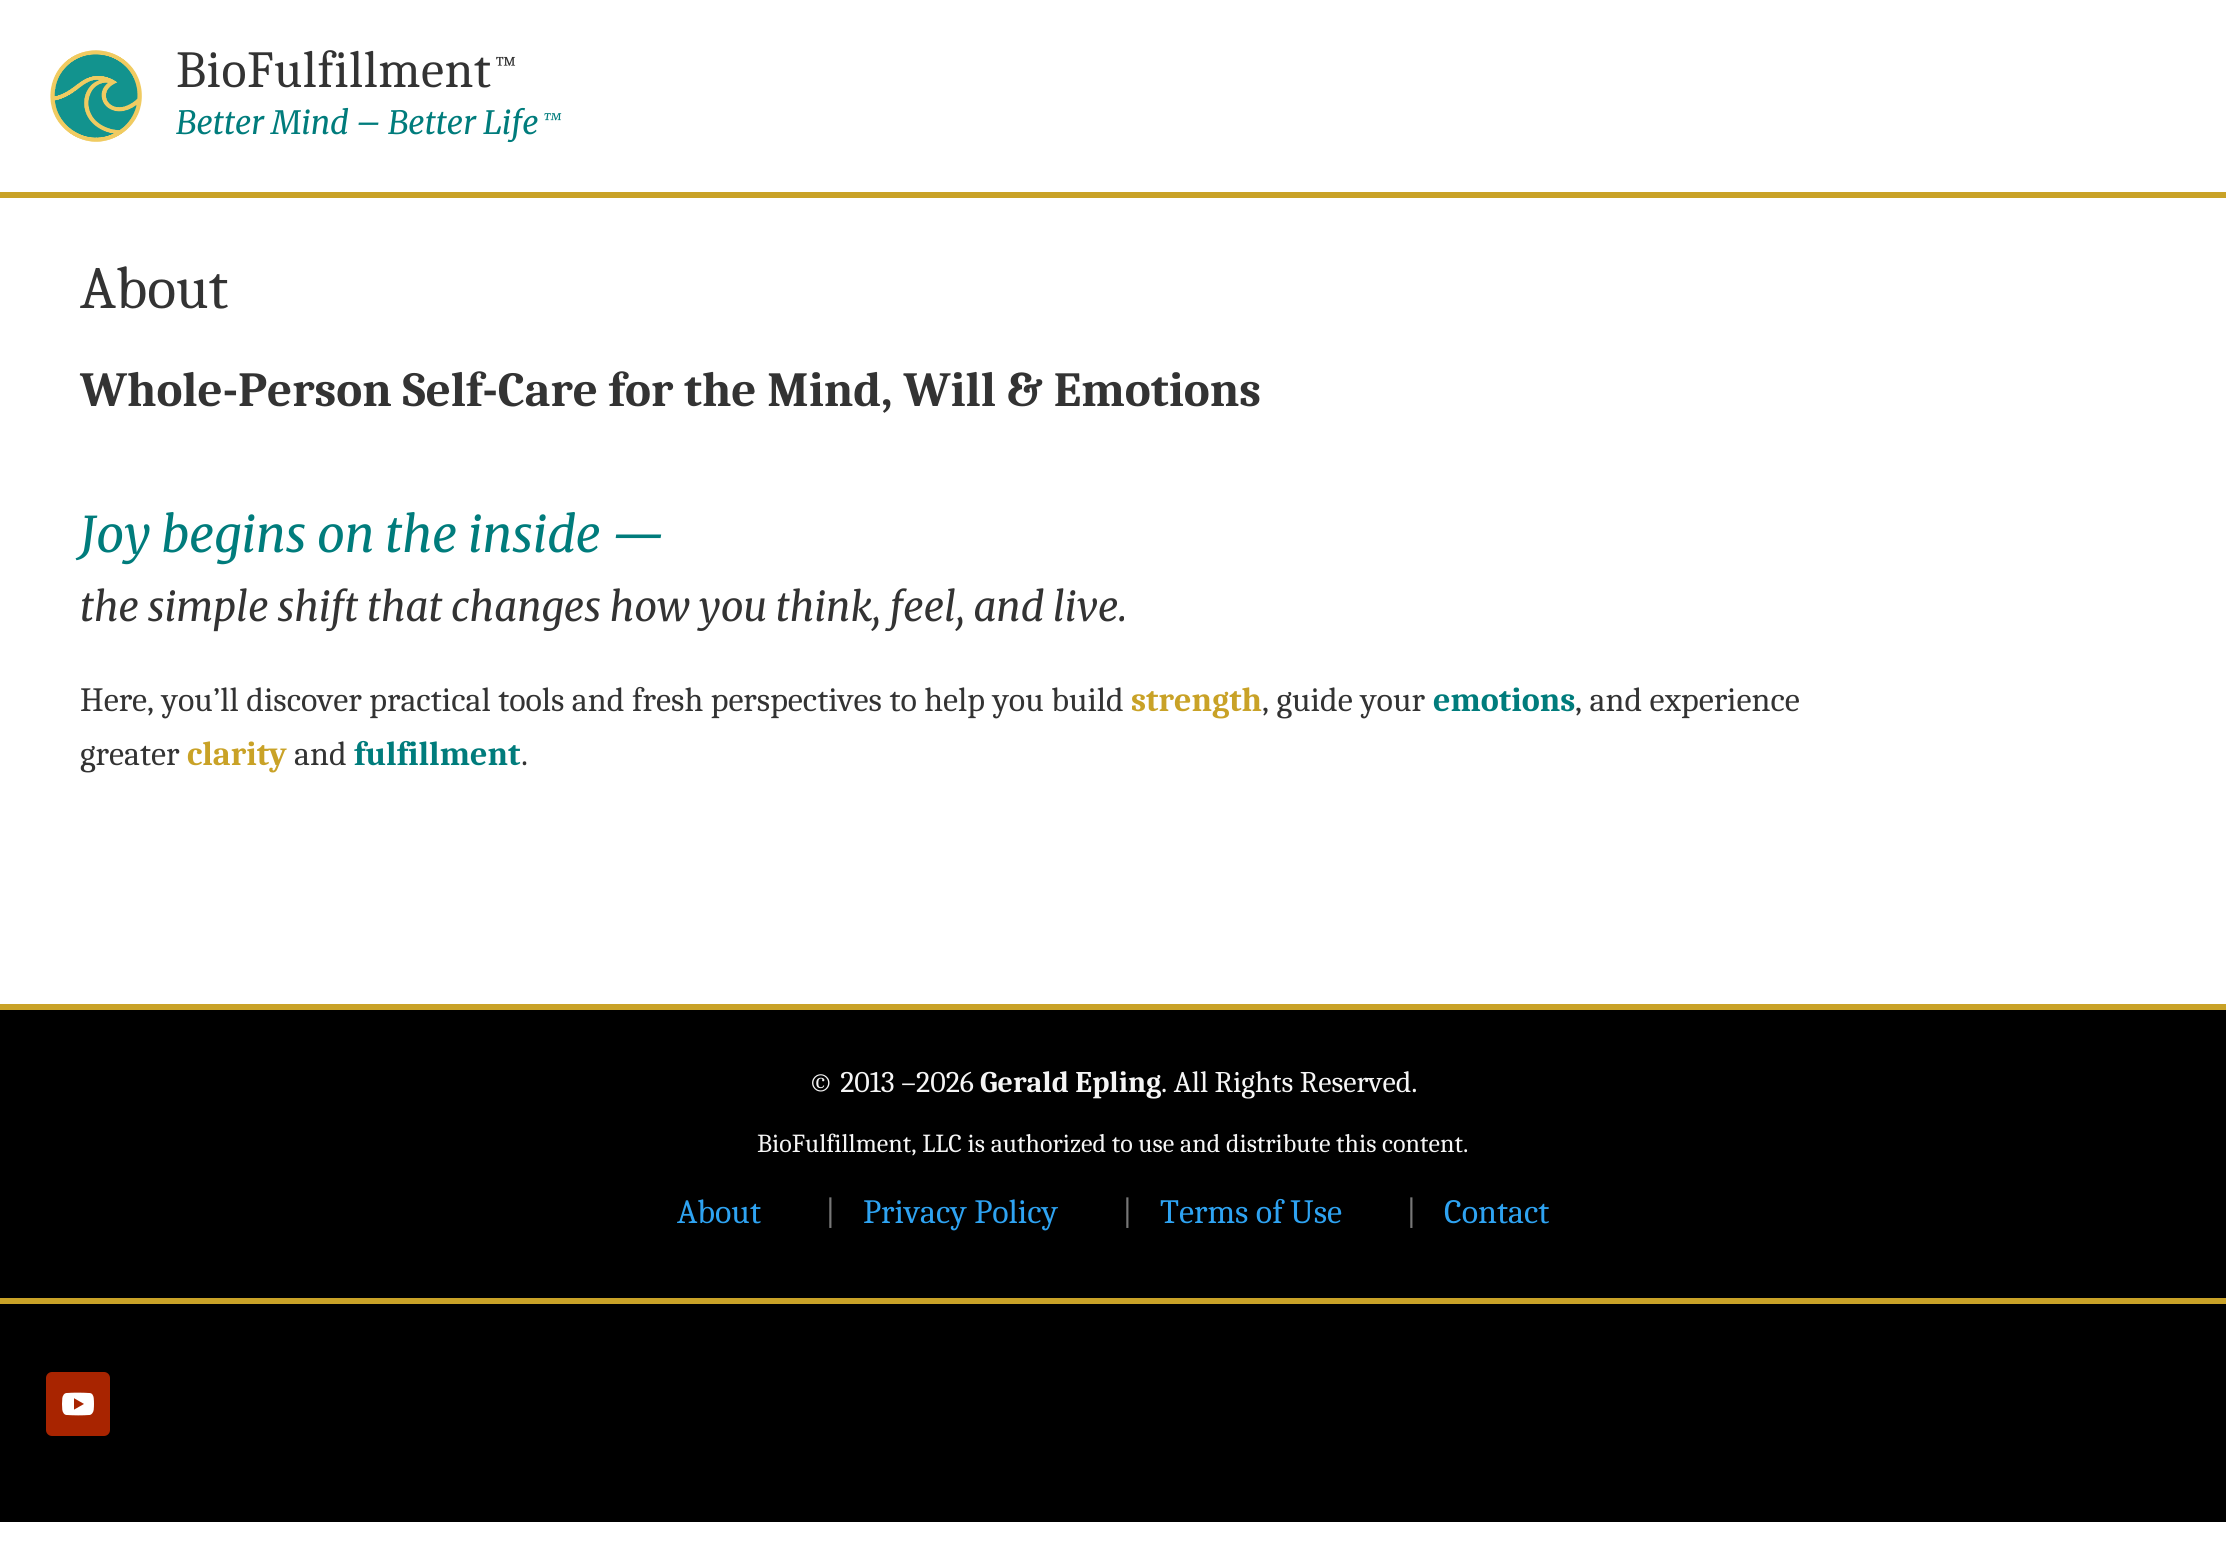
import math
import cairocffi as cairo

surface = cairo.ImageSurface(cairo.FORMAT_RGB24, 2226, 1562)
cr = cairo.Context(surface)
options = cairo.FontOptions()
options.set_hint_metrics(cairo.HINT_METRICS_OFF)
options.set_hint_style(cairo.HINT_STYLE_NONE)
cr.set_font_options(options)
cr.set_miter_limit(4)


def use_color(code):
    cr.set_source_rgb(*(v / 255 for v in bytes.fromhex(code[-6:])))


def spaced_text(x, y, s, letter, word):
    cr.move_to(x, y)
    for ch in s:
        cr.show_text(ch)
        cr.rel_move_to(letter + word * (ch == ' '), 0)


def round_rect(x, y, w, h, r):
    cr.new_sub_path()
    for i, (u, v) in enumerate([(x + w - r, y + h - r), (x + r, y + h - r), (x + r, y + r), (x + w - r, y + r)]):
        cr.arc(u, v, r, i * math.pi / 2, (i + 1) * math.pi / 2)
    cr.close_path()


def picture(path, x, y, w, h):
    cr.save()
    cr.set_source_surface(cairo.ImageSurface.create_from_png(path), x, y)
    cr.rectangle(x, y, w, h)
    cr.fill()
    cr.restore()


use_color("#ffffff")
cr.paint()
use_color("#c9a227")
cr.rectangle(0, 192, 2226, 6)
cr.fill()
picture("img1.png", 50, 50, 92, 92)
cr.select_font_face("Caladea")
cr.set_font_size(52)
use_color("#333333")
spaced_text(176, 87, "BioFulfillment", 0.5, 0)
cr.set_font_size(29)
spaced_text(496, 76, "™", 0.5, 0)
cr.select_font_face("Merriweather Light", cairo.FONT_SLANT_ITALIC)
cr.set_font_size(32)
use_color("#007c7c")
cr.move_to(176, 134)
cr.show_text("Better Mind – Better Life")
cr.set_font_size(18)
cr.move_to(543, 127)
cr.show_text("™")
cr.select_font_face("Caladea")
cr.set_font_size(60)
use_color("#333333")
cr.move_to(80, 308)
cr.show_text("About")
cr.select_font_face("Caladea", cairo.FONT_SLANT_NORMAL, cairo.FONT_WEIGHT_BOLD)
cr.set_font_size(49)
cr.move_to(80, 406)
cr.show_text("Whole-Person Self-Care for the Mind, Will & Emotions")
cr.select_font_face("Merriweather Light", cairo.FONT_SLANT_ITALIC)
use_color("#007c7c")
cr.move_to(80, 552)
cr.show_text("Joy begins on the inside —")
cr.set_font_size(40.1)
use_color("#333333")
cr.move_to(80, 621)
cr.show_text("the simple shift that changes how you think, feel, and live.")
cr.select_font_face("Caladea")
cr.set_font_size(34)
cr.move_to(80, 711)
cr.show_text("Here, you’ll discover practical tools and fresh perspectives to help you build")
cr.select_font_face("Caladea", cairo.FONT_SLANT_NORMAL, cairo.FONT_WEIGHT_BOLD)
use_color("#c9a227")
cr.move_to(1131, 711)
cr.show_text("strength")
cr.select_font_face("Caladea")
use_color("#333333")
cr.move_to(1262, 711)
cr.show_text(", guide your")
cr.select_font_face("Caladea", cairo.FONT_SLANT_NORMAL, cairo.FONT_WEIGHT_BOLD)
use_color("#007c7c")
cr.move_to(1433, 711)
cr.show_text("emotions")
cr.select_font_face("Caladea")
use_color("#333333")
cr.move_to(1575, 711)
cr.show_text(", and experience")
cr.move_to(80, 765)
cr.show_text("greater")
cr.select_font_face("Caladea", cairo.FONT_SLANT_NORMAL, cairo.FONT_WEIGHT_BOLD)
use_color("#c9a227")
cr.move_to(187, 765)
cr.show_text("clarity")
cr.select_font_face("Caladea")
use_color("#333333")
cr.move_to(294, 765)
cr.show_text("and")
cr.select_font_face("Caladea", cairo.FONT_SLANT_NORMAL, cairo.FONT_WEIGHT_BOLD)
use_color("#007c7c")
cr.move_to(354, 765)
cr.show_text("fulfillment")
cr.select_font_face("Caladea")
use_color("#333333")
cr.move_to(521, 765)
cr.show_text(".")
use_color("#000000")
cr.rectangle(0, 1010, 2226, 288)
cr.fill()
use_color("#c9a227")
cr.rectangle(0, 1004, 2226, 6)
cr.fill()
cr.set_font_size(30)
use_color("#f5f5f5")
cr.move_to(808, 1092)
cr.show_text("© 2013")
cr.move_to(901, 1092)
cr.show_text("–2026")
cr.select_font_face("Caladea", cairo.FONT_SLANT_NORMAL, cairo.FONT_WEIGHT_BOLD)
cr.move_to(980, 1092)
cr.show_text("Gerald Epling")
cr.select_font_face("Caladea")
cr.move_to(1161, 1092)
cr.show_text(". All Rights Reserved.")
cr.set_font_size(26)
cr.move_to(757, 1152)
cr.show_text("BioFulfillment, LLC is authorized to use and distribute this content.")
cr.set_font_size(34)
use_color("#2ea3f2")
cr.move_to(677, 1223)
cr.show_text("About")
use_color("#777777")
cr.move_to(825, 1223)
cr.show_text("|")
use_color("#2ea3f2")
cr.move_to(863, 1223)
cr.show_text("Privacy Policy")
use_color("#777777")
cr.move_to(1122, 1223)
cr.show_text("|")
use_color("#2ea3f2")
cr.move_to(1160, 1223)
cr.show_text("Terms of Use")
use_color("#777777")
cr.move_to(1406, 1223)
cr.show_text("|")
use_color("#2ea3f2")
cr.move_to(1444, 1223)
cr.show_text("Contact")
use_color("#000000")
cr.rectangle(0, 1304, 2226, 218)
cr.fill()
use_color("#c9a227")
cr.rectangle(0, 1298, 2226, 6)
cr.fill()
use_color("#a82400")
round_rect(46, 1372, 64, 64, 6)
cr.fill()
picture("img2.png", 62, 1392, 32, 24)
surface.write_to_png("result.png")
